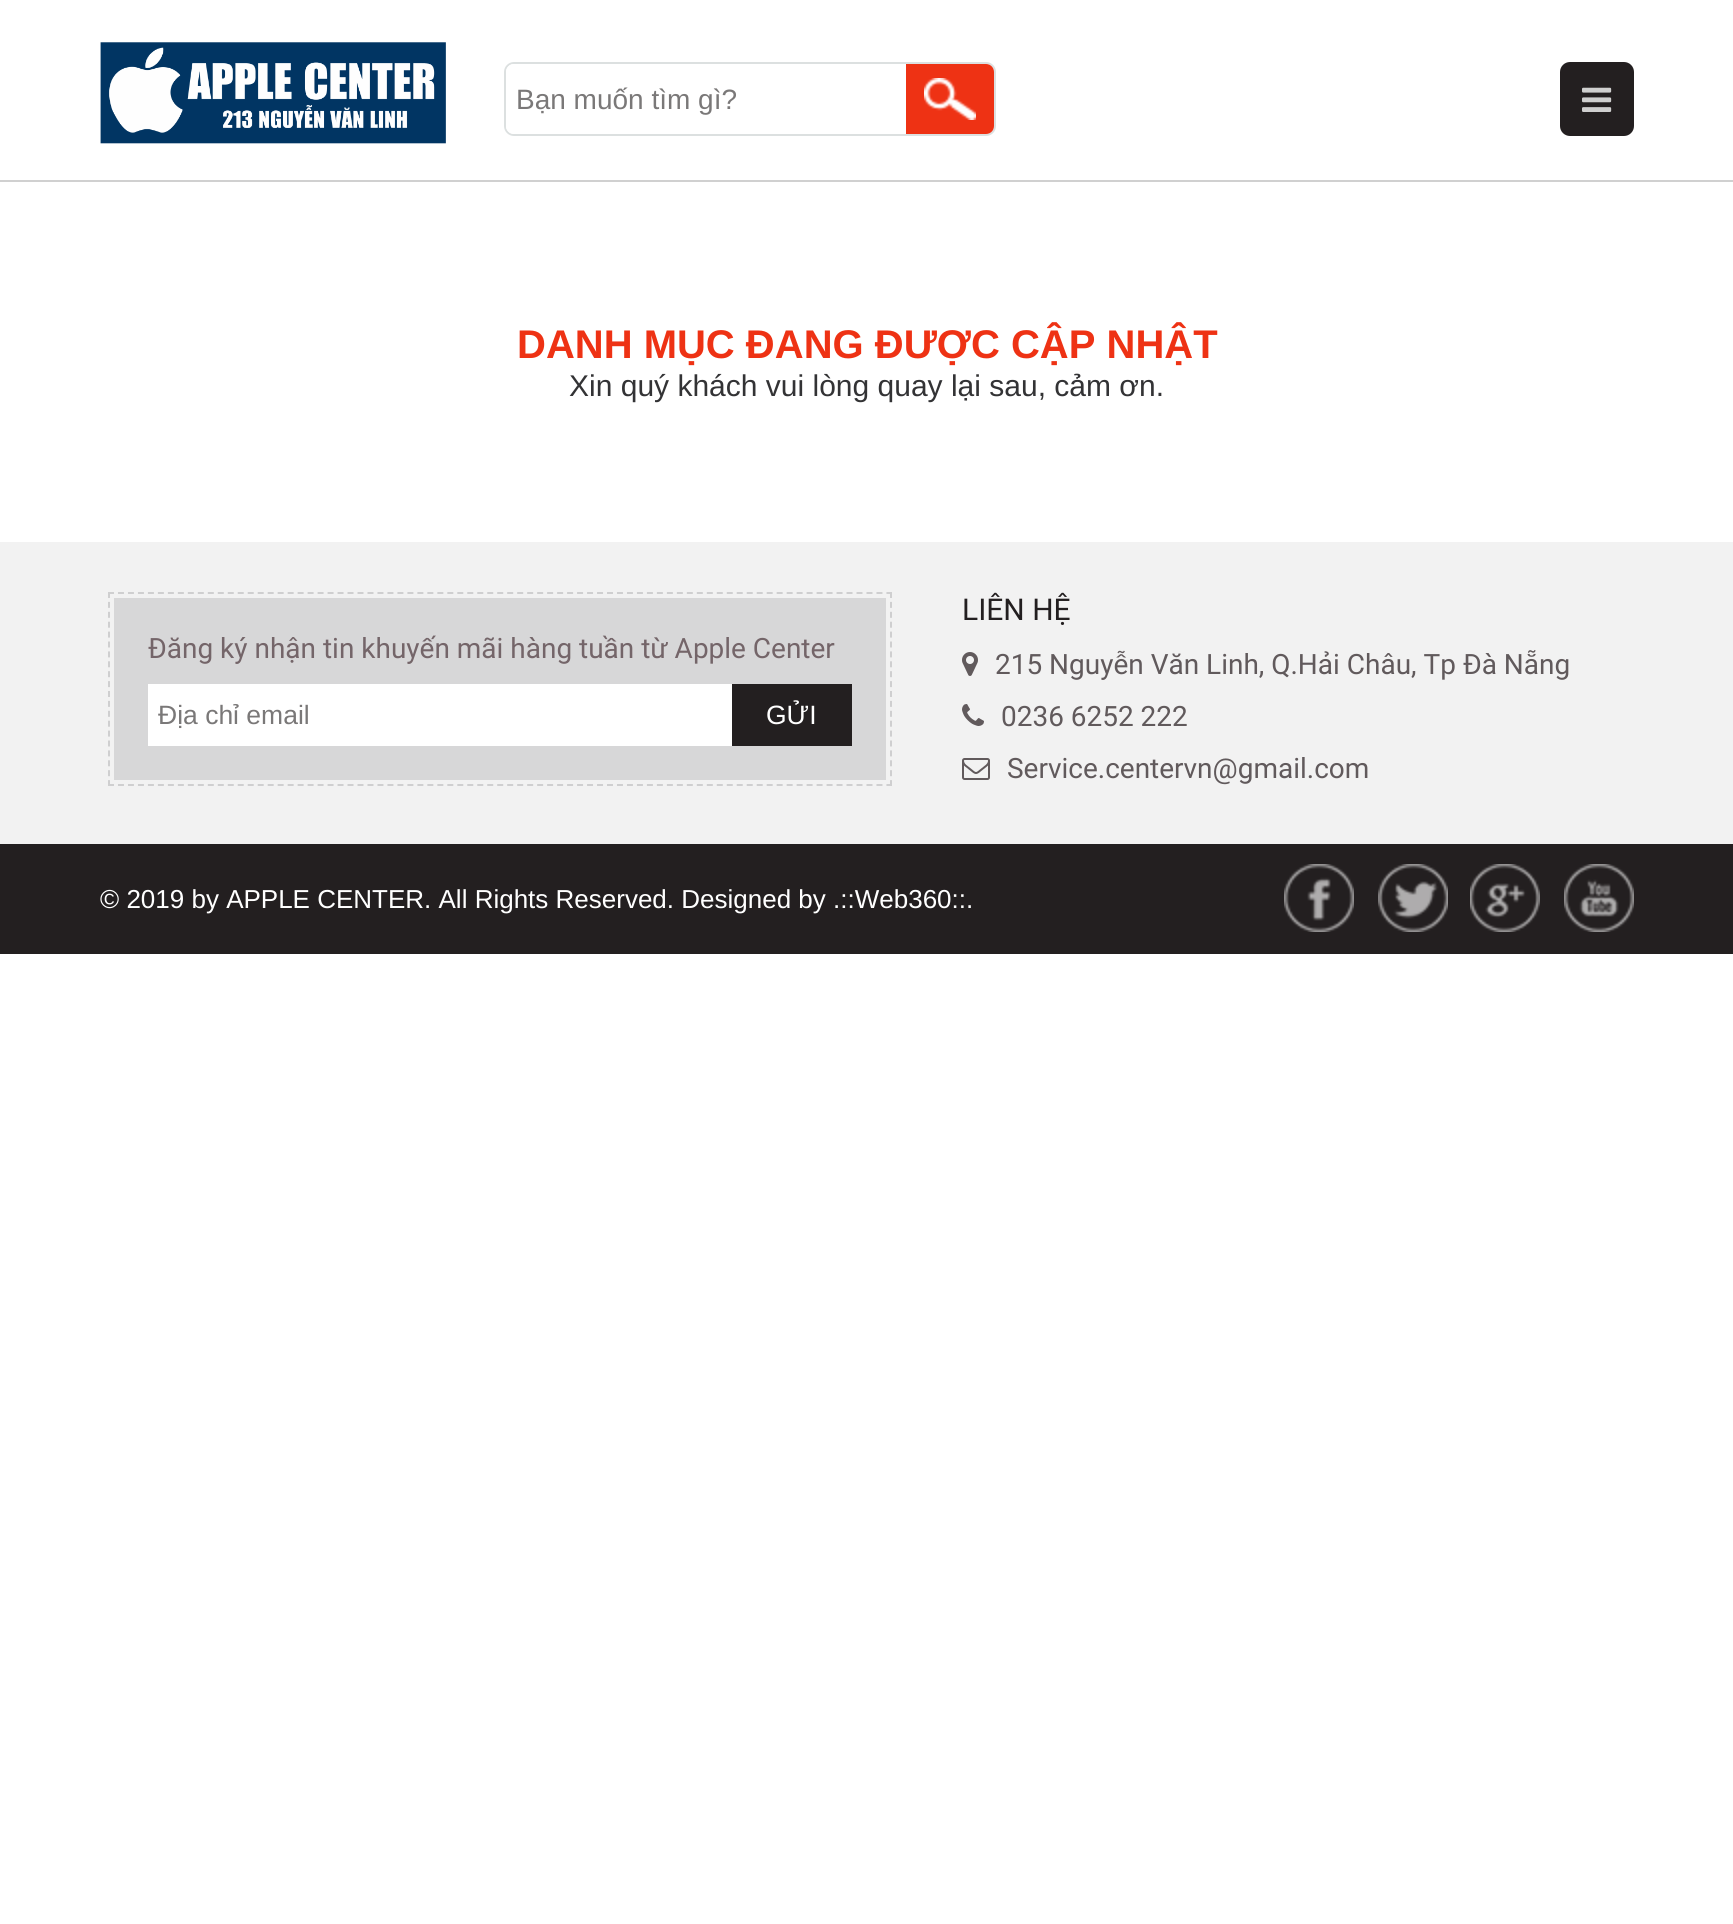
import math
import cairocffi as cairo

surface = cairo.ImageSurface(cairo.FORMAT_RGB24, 1733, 1924)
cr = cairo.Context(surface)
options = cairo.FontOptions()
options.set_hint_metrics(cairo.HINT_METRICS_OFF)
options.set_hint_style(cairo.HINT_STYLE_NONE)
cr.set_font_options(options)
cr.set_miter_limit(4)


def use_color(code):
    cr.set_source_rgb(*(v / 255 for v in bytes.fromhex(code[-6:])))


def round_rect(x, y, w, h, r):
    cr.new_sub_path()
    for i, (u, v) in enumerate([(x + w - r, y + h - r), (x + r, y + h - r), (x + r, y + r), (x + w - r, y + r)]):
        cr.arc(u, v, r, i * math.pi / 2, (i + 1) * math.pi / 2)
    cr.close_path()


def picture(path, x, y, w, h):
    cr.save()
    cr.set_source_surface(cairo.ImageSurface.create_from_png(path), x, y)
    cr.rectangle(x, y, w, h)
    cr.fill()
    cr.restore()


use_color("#ffffff")
cr.paint()
use_color("#d0d0d0")
cr.rectangle(0, 180, 1733, 2)
cr.fill()
picture("img1.png", 100, 42, 346, 102)
round_rect(505, 63, 490, 72, 9)
use_color("#dce0e0")
cr.stroke()
use_color("#ffffff")
cr.new_path()
cr.move_to(514, 64)
cr.line_to(906, 64)
cr.line_to(906, 134)
cr.line_to(514, 134)
cr.curve_to(509.5, 134, 506, 130.5, 506, 126)
cr.line_to(506, 72)
cr.curve_to(506, 67.5, 509.5, 64, 514, 64)
cr.close_path()
cr.fill()
cr.select_font_face("Liberation Sans")
cr.set_font_size(28)
use_color("#7a7878")
cr.move_to(516, 109)
cr.show_text("Bạn muốn tìm gì?")
use_color("#ee3214")
cr.new_path()
cr.move_to(906, 64)
cr.line_to(986, 64)
cr.curve_to(990.5, 64, 994, 67.5, 994, 72)
cr.line_to(994, 126)
cr.curve_to(994, 130.5, 990.5, 134, 986, 134)
cr.line_to(906, 134)
cr.close_path()
cr.fill()
picture("img2.png", 924, 78, 52, 42)
use_color("#231f20")
round_rect(1561, 63, 72, 72, 9)
cr.fill_preserve()
cr.stroke()
picture("img3.png", 1582, 87, 30, 25)
cr.select_font_face("Liberation Sans", cairo.FONT_SLANT_NORMAL, cairo.FONT_WEIGHT_BOLD)
cr.set_font_size(40)
use_color("#ee3214")
cr.move_to(517, 358)
cr.show_text("DANH MỤC ĐANG ĐƯỢC CẬP NHẬT")
cr.select_font_face("Liberation Sans")
cr.set_font_size(30)
use_color("#333335")
cr.move_to(569, 396)
cr.show_text("Xin quý khách vui lòng quay lại sau, cảm ơn.")
use_color("#f2f2f2")
cr.rectangle(0, 542, 1733, 302)
cr.fill()
cr.new_path()
cr.move_to(108, 593)
cr.line_to(892, 593)
use_color("#cfcfd0")
cr.set_dash([6, 3.98])
cr.stroke()
cr.new_path()
cr.move_to(891, 592)
cr.line_to(891, 786)
cr.set_dash([6, 3.9])
cr.stroke()
cr.new_path()
cr.move_to(108, 785)
cr.line_to(892, 785)
cr.set_dash([6, 3.98])
cr.stroke()
cr.new_path()
cr.move_to(109, 592)
cr.line_to(109, 786)
cr.set_dash([6, 3.9])
cr.stroke()
use_color("#d7d7d8")
cr.rectangle(114, 598, 772, 182)
cr.fill()
cr.select_font_face("Roboto")
cr.set_font_size(28)
use_color("#746569")
cr.move_to(148, 658)
cr.show_text("Đăng ký nhận tin khuyến mãi hàng tuần từ Apple Center")
use_color("#ffffff")
cr.rectangle(148, 684, 584, 62)
cr.fill()
cr.select_font_face("Liberation Sans")
cr.set_font_size(26.5)
use_color("#7a7878")
cr.move_to(158, 724)
cr.show_text("Địa chỉ email")
use_color("#231f20")
cr.rectangle(732, 684, 120, 62)
cr.fill()
use_color("#ffffff")
cr.move_to(766, 724)
cr.show_text("GỬI")
cr.select_font_face("Roboto")
cr.set_font_size(30)
use_color("#231f20")
cr.move_to(962, 620)
cr.show_text("LIÊN HỆ")
picture("img4.png", 962, 652, 16, 24)
cr.set_font_size(28)
use_color("#615a5c")
cr.move_to(995, 674)
cr.show_text("215 Nguyễn Văn Linh, Q.Hải Châu, Tp Đà Nẵng")
picture("img5.png", 962, 704, 22, 22)
cr.move_to(1001, 726)
cr.show_text("0236 6252 222")
picture("img6.png", 962, 758, 28, 22)
cr.move_to(1007, 778)
cr.show_text("Service.centervn@gmail.com")
use_color("#231f20")
cr.rectangle(0, 844, 1733, 110)
cr.fill()
cr.select_font_face("Liberation Sans")
cr.set_font_size(26)
use_color("#ffffff")
cr.move_to(100, 908)
cr.show_text("© 2019 by APPLE CENTER. All Rights Reserved. Designed by .::Web360::.")
picture("img7.png", 1284, 864, 70, 68)
picture("img8.png", 1378, 864, 70, 68)
picture("img9.png", 1470, 864, 70, 68)
picture("img10.png", 1564, 864, 70, 68)
surface.write_to_png("result.png")
